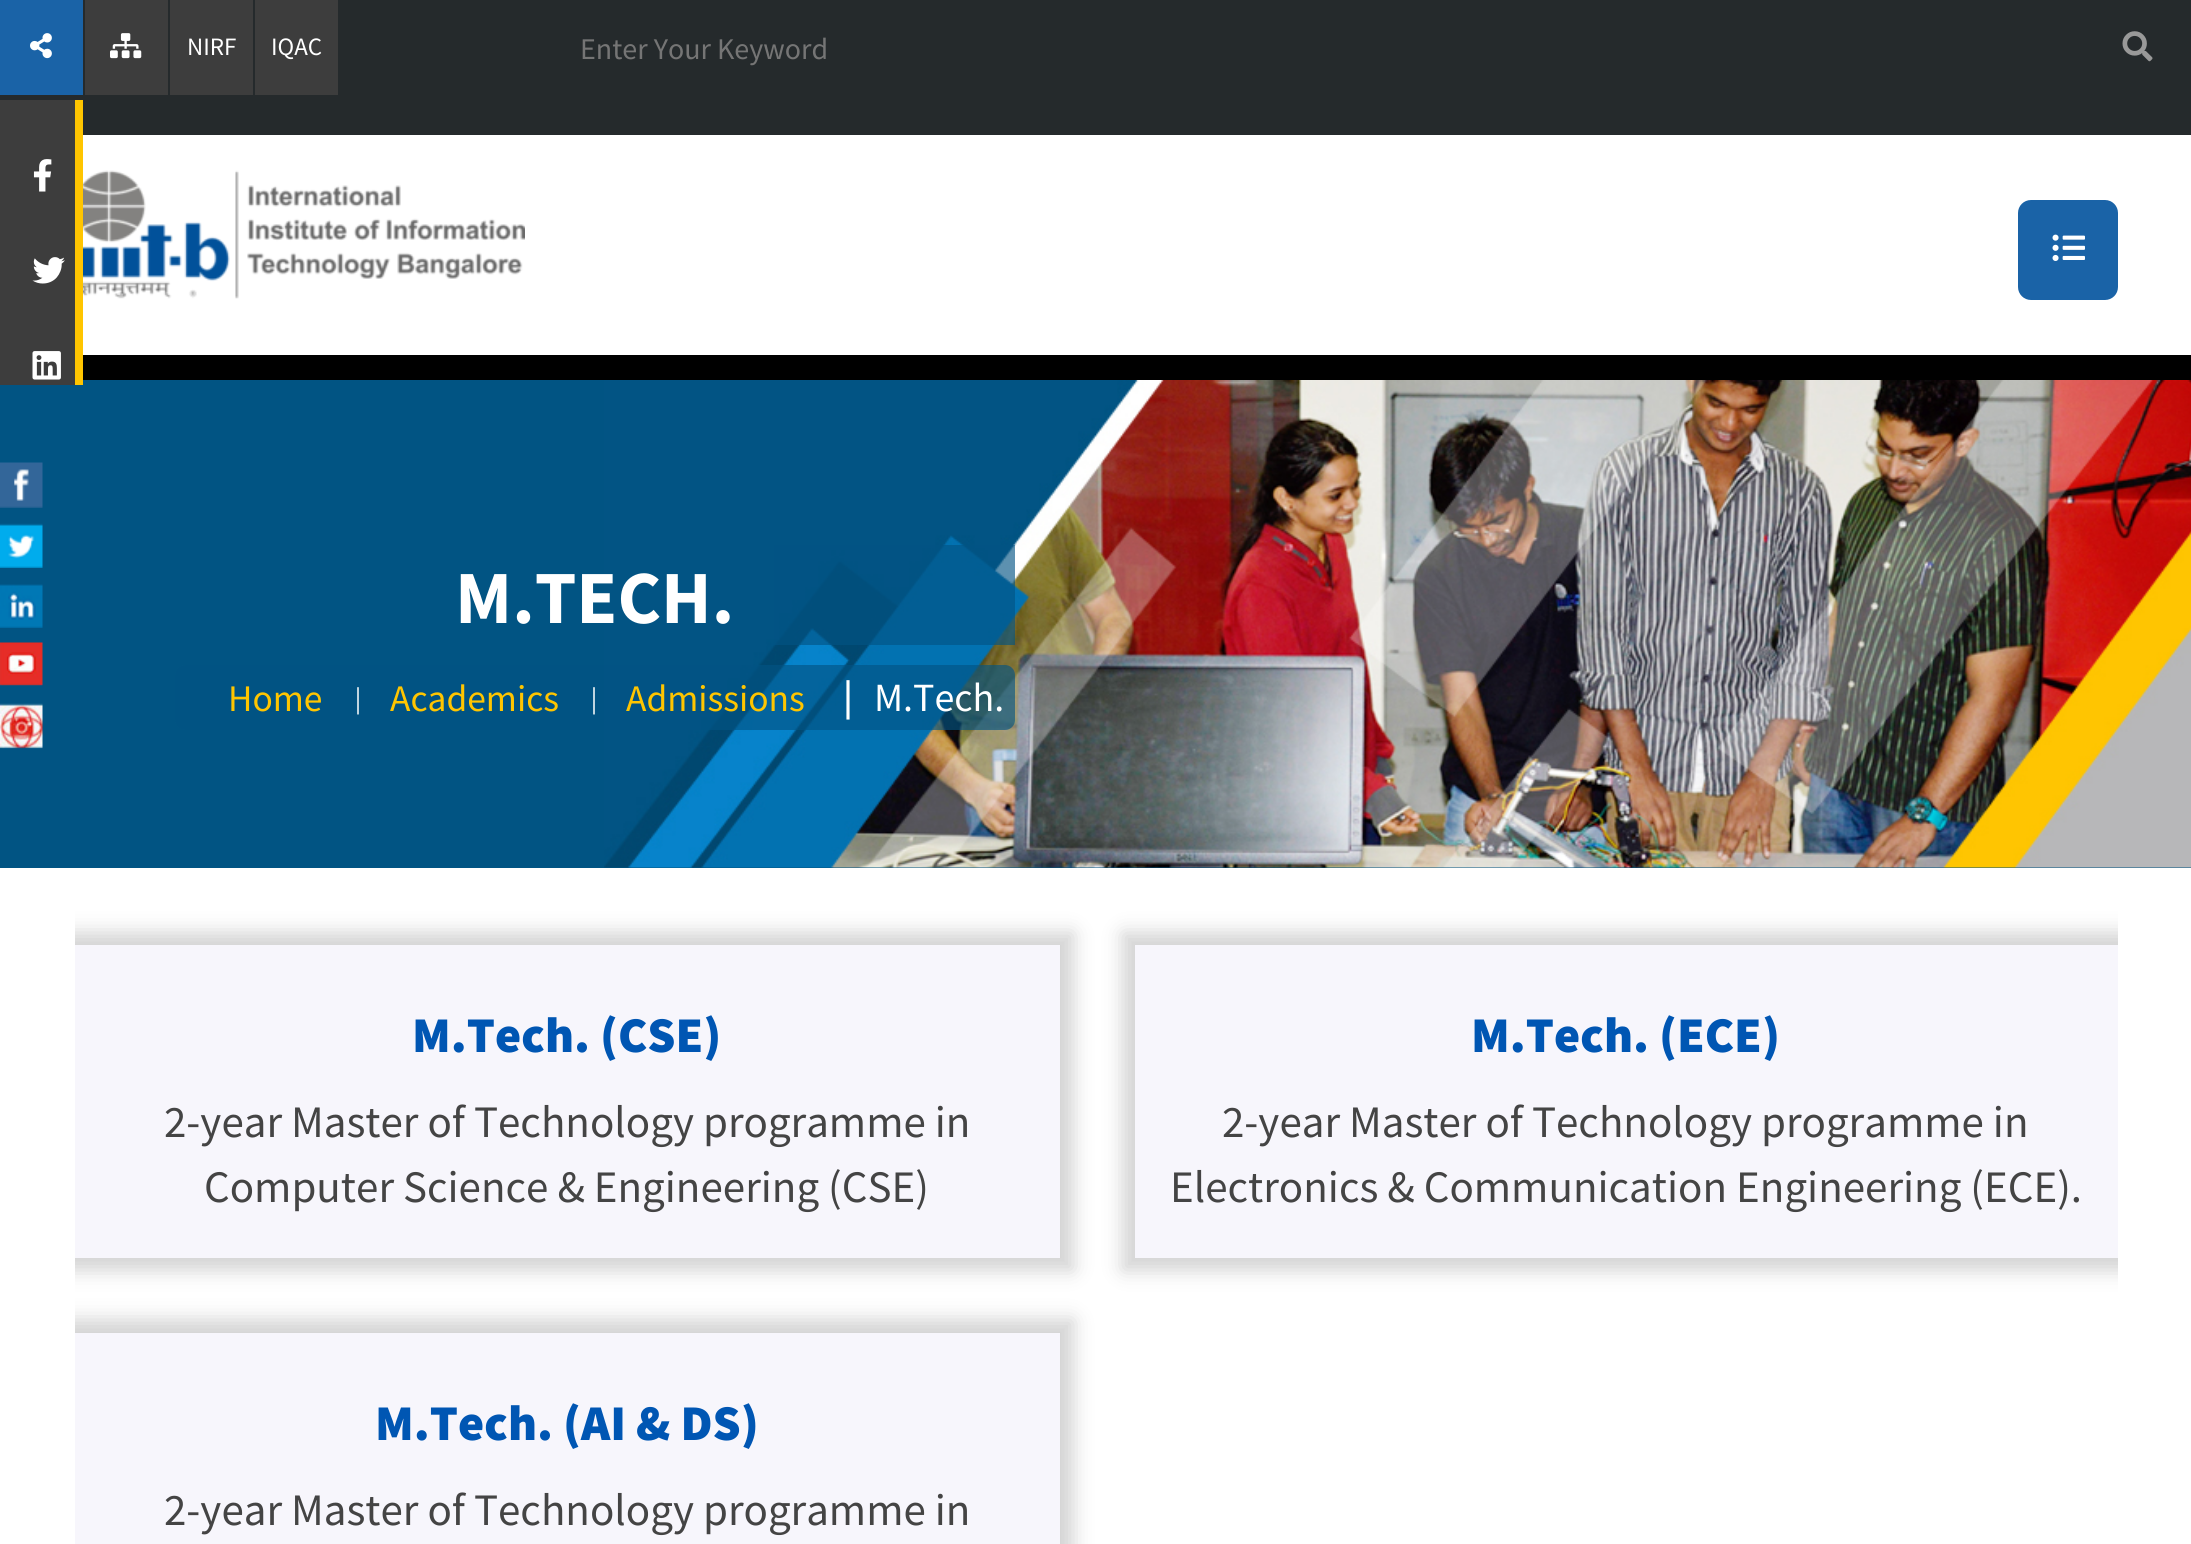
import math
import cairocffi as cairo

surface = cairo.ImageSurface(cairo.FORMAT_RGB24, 2191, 1544)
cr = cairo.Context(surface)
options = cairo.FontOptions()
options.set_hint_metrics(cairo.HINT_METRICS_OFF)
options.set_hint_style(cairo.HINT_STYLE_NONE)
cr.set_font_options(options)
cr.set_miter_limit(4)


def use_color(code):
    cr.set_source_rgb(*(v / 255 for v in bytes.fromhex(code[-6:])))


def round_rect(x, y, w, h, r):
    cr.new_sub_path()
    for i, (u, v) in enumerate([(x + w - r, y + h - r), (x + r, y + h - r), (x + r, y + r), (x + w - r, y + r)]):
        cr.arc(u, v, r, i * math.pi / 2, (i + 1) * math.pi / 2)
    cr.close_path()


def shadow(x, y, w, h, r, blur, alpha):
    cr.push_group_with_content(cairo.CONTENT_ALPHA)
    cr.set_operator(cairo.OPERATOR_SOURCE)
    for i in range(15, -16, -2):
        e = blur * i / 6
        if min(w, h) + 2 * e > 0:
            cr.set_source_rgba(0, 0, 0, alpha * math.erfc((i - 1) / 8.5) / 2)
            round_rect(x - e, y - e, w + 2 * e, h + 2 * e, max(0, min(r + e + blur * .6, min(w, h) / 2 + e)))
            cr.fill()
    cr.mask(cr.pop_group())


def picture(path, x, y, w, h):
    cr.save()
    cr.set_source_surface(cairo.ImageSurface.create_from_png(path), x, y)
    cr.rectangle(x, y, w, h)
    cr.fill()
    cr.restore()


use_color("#000000")
cr.paint()
use_color("#252a2c")
cr.rectangle(0, 0, 2191, 135)
cr.fill()
use_color("#1a63a7")
cr.rectangle(0, 0, 83, 95)
cr.fill()
picture("img1.png", 30, 33, 22, 26)
use_color("#015483")
cr.rectangle(0, 380, 2191, 488)
cr.fill()
use_color("#ffc500")
cr.rectangle(75, 100, 8, 285)
cr.fill()
use_color("#3d3d3d")
cr.rectangle(0, 100, 75, 285)
cr.fill()
picture("img2.png", 33, 159, 19, 33)
picture("img3.png", 32, 257, 33, 27)
picture("img4.png", 32, 351, 29, 29)
cr.rectangle(85, 0, 83, 95)
cr.fill()
picture("img5.png", 110, 33, 32, 26)
cr.rectangle(170, 0, 83, 95)
cr.fill()
cr.select_font_face("Source Sans Pro")
cr.set_font_size(25)
use_color("#ffffff")
cr.move_to(187, 55)
cr.show_text("NIRF")
use_color("#3d3d3d")
cr.rectangle(255, 0, 83, 95)
cr.fill()
use_color("#ffffff")
cr.move_to(271, 55)
cr.show_text("IQAC")
cr.set_font_size(30)
use_color("#757575")
cr.move_to(580, 59)
cr.show_text("Enter Your Keyword")
picture("img6.png", 2122, 31, 31, 31)
use_color("#ffffff")
cr.rectangle(83, 135, 2108, 220)
cr.fill()
picture("img7.png", 83, 170, 442, 129)
use_color("#1a63a7")
round_rect(2018, 200, 100, 100, 13)
cr.fill()
picture("img8.png", 2052, 234, 33, 27)
picture("img9.png", 0, 462, 43, 46)
picture("img10.png", 0, 523, 43, 45)
picture("img11.png", 0, 584, 43, 44)
picture("img12.png", 0, 642, 43, 44)
picture("img13.png", 0, 703, 43, 46)
picture("img14.png", 604, 380, 1587, 488)
cr.set_source_rgba(0.008, 0.329, 0.518, 0.64)
cr.rectangle(774, 545, 241, 100)
cr.fill()
cr.select_font_face("Source Sans Pro", cairo.FONT_SLANT_NORMAL, cairo.FONT_WEIGHT_BOLD)
cr.set_font_size(75)
use_color("#ffffff")
cr.move_to(455, 623)
cr.show_text("M.TECH.")
cr.set_source_rgba(0.008, 0.329, 0.518, 0.64)
round_rect(175, 665, 840, 65, 10)
cr.fill()
cr.select_font_face("Source Sans Pro")
cr.set_font_size(37.5)
use_color("#ffc500")
cr.move_to(228, 711)
cr.show_text("Home")
cr.select_font_face("Liberation Serif")
cr.set_font_size(30)
use_color("#ffffff")
cr.move_to(355, 708)
cr.show_text("|")
cr.select_font_face("Source Sans Pro")
cr.set_font_size(37.5)
use_color("#ffc500")
cr.move_to(390, 711)
cr.show_text("Academics")
cr.select_font_face("Liberation Serif")
cr.set_font_size(30)
use_color("#ffffff")
cr.move_to(591, 708)
cr.show_text("|")
cr.select_font_face("Source Sans Pro")
cr.set_font_size(37.5)
use_color("#ffc500")
cr.move_to(626, 711)
cr.show_text("Admissions")
cr.select_font_face("DejaVu Sans")
cr.set_font_size(40)
use_color("#ffffff")
cr.move_to(838, 711)
cr.show_text("∣")
cr.select_font_face("Source Sans Pro")
cr.move_to(874, 711)
cr.show_text("M.Tech.")
cr.rectangle(0, 868, 2191, 676)
cr.fill()
cr.save()
cr.rectangle(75, 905, 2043, 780)
cr.clip()
use_color("#000000")
shadow(63, 933, 1010, 337, 0, 10, 0.18)
cr.restore()
use_color("#f7f6fc")
cr.rectangle(75, 945, 985, 313)
cr.fill()
cr.select_font_face("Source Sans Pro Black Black")
cr.set_font_size(50)
use_color("#0056b3")
cr.move_to(412, 1052)
cr.show_text("M.Tech. (CSE)")
cr.select_font_face("Source Sans Pro")
cr.set_font_size(45)
use_color("#444444")
cr.move_to(164, 1137)
cr.show_text("2-year Master of Technology programme in")
cr.move_to(204, 1202)
cr.show_text("Computer Science & Engineering (CSE)")
cr.save()
cr.rectangle(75, 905, 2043, 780)
cr.clip()
use_color("#000000")
shadow(1123, 933, 1007, 337, 0, 10, 0.18)
cr.restore()
use_color("#f7f6fc")
cr.rectangle(1135, 945, 983, 313)
cr.fill()
cr.select_font_face("Source Sans Pro Black Black")
cr.set_font_size(50)
use_color("#0056b3")
cr.move_to(1471, 1052)
cr.show_text("M.Tech. (ECE)")
cr.select_font_face("Source Sans Pro")
cr.set_font_size(45)
use_color("#444444")
cr.move_to(1222, 1137)
cr.show_text("2-year Master of Technology programme in")
cr.move_to(1170, 1202)
cr.show_text("Electronics & Communication Engineering (ECE).")
cr.save()
cr.rectangle(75, 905, 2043, 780)
cr.clip()
use_color("#000000")
shadow(63, 1320, 1010, 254, 0, 10, 0.18)
cr.restore()
use_color("#f7f6fc")
cr.rectangle(75, 1333, 985, 211)
cr.fill()
cr.select_font_face("Source Sans Pro Black Black")
cr.set_font_size(50)
use_color("#0056b3")
cr.move_to(375, 1440)
cr.show_text("M.Tech. (AI & DS)")
cr.select_font_face("Source Sans Pro")
cr.set_font_size(45)
use_color("#444444")
cr.move_to(164, 1525)
cr.show_text("2-year Master of Technology programme in")
surface.write_to_png("result.png")
